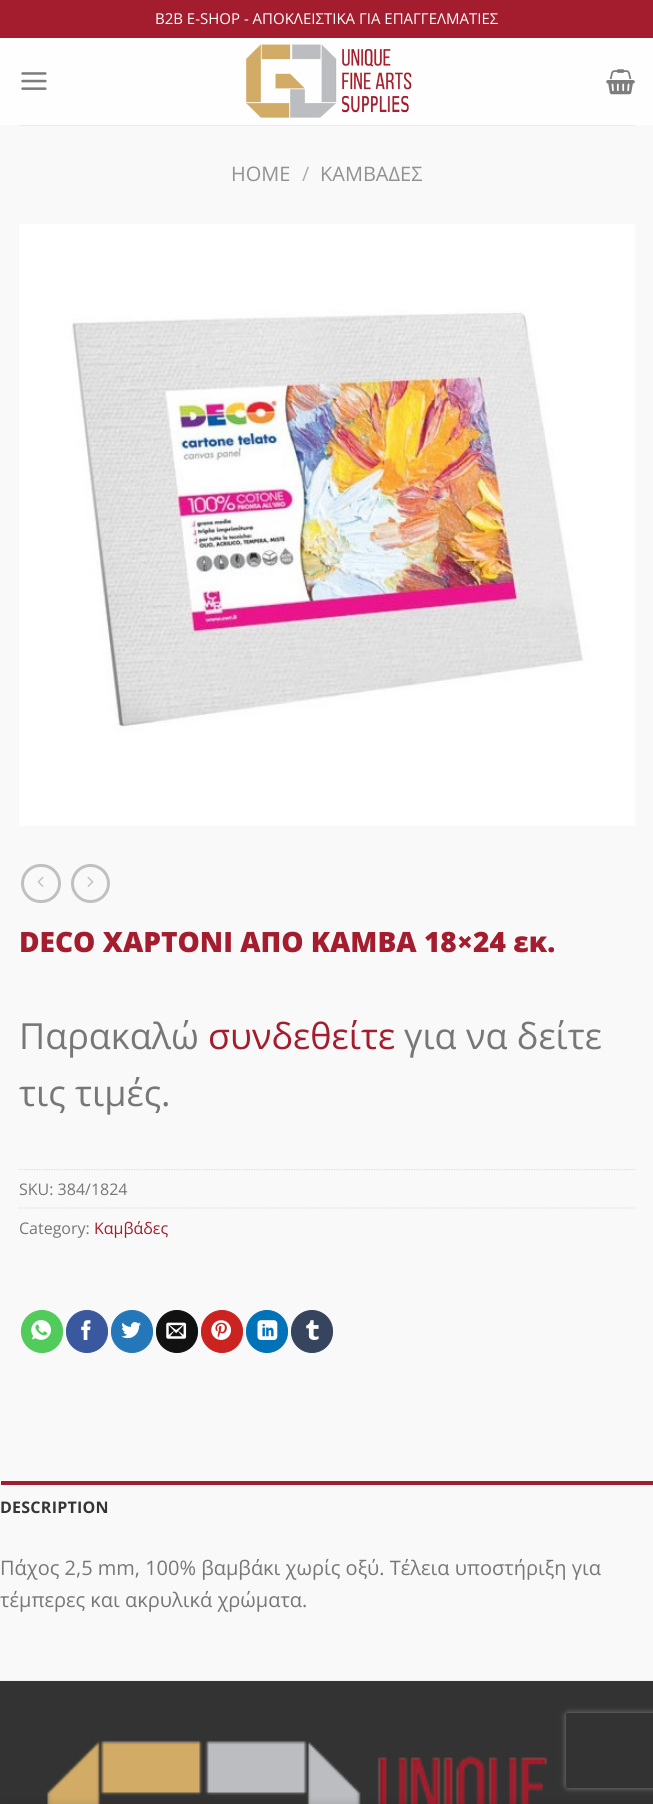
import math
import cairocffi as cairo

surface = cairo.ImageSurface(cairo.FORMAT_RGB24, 653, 1804)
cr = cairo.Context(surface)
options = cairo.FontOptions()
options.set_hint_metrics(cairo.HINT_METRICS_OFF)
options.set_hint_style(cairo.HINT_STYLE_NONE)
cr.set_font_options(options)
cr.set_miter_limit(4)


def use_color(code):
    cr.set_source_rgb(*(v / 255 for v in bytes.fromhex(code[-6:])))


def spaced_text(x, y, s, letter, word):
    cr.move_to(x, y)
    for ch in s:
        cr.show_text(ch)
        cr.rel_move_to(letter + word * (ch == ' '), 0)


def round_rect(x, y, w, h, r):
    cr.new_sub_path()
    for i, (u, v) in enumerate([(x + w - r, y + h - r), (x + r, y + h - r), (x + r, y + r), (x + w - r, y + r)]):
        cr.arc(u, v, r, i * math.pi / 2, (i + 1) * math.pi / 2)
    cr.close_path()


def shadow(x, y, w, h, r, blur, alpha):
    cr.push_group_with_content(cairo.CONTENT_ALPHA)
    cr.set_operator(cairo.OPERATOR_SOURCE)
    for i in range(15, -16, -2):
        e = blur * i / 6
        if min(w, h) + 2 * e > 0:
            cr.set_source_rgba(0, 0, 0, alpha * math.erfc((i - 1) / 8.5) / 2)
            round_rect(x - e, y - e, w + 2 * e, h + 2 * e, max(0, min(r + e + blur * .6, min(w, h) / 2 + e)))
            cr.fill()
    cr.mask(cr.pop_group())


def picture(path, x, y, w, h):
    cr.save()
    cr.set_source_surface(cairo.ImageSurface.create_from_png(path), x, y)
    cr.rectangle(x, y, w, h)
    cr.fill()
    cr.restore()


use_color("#f9f9f9")
cr.paint()
use_color("#a41d2e")
cr.rectangle(0, 0, 653, 38)
cr.fill()
cr.select_font_face("Open Sans")
cr.set_font_size(15)
use_color("#ffffff")
cr.move_to(155, 24)
cr.show_text("B2B Ε-SHOP - ΑΠΟΚΛΕΙΣΤΙΚΑ ΓΙΑ ΕΠΑΓΓΕΛΜΑΤΙΕΣ")
use_color("#fefefe")
cr.rectangle(0, 38, 653, 87)
cr.fill()
picture("img1.png", 21, 72, 26, 18)
picture("img2.png", 246, 44, 166, 74)
picture("img3.png", 606, 69, 29, 26)
use_color("#ececec")
cr.rectangle(19, 125, 616, 1)
cr.fill()
cr.set_font_size(20)
use_color("#929292")
cr.move_to(231, 181)
cr.show_text("HOME")
use_color("#aeaeae")
cr.move_to(302, 181)
cr.show_text("/")
use_color("#929292")
cr.move_to(320, 181)
cr.show_text("ΚΑΜΒΑΔΕΣ")
picture("img4.png", 19, 224, 616, 602)
round_rect(22.5, 865.5, 37, 36, 18)
use_color("#c0c0c0")
cr.set_line_width(3)
cr.stroke()
picture("img5.png", 37, 876, 7, 11)
cr.arc(90.5, 883.5, 18, 0, 2 * math.pi)
cr.stroke()
picture("img6.png", 87, 876, 7, 11)
cr.select_font_face("Open Sans ExtraBold")
cr.set_font_size(28)
use_color("#a41d2e")
cr.move_to(19, 952)
cr.show_text("DECO ΧΑΡΤΟΝΙ ΑΠΟ ΚΑΜΒΑ 18×24 εκ.")
cr.select_font_face("Open Sans")
cr.set_font_size(36)
use_color("#777777")
cr.move_to(19, 1049)
cr.show_text("Παρακαλώ")
use_color("#a41d2e")
cr.move_to(208, 1049)
cr.show_text("συνδεθείτε")
use_color("#777777")
cr.move_to(404, 1049)
cr.show_text("για να δείτε")
cr.move_to(19, 1106)
cr.show_text("τις τιμές.")
cr.new_path()
cr.move_to(19, 1169.5)
cr.line_to(635, 1169.5)
use_color("#dddddd")
cr.set_line_width(1.2)
cr.set_dash([1.25, 1.25])
cr.stroke()
cr.set_font_size(16)
use_color("#777777")
cr.move_to(19, 1195)
cr.show_text("SKU: 384/1824")
cr.new_path()
cr.move_to(19, 1208)
cr.line_to(635, 1208)
use_color("#dddddd")
cr.stroke()
use_color("#777777")
cr.move_to(19, 1234)
cr.show_text("Category:")
use_color("#a41d2e")
cr.move_to(94, 1234)
cr.show_text("Καμβάδες")
use_color("#51cb5a")
round_rect(21.5, 1310.5, 41, 42, 20.5)
cr.fill_preserve()
cr.set_line_width(1)
cr.set_dash([])
cr.stroke()
picture("img7.png", 31, 1320, 20, 20)
use_color("#3a589d")
round_rect(66.5, 1310.5, 41, 42, 20.5)
cr.fill_preserve()
cr.stroke()
picture("img8.png", 81, 1320, 10, 20)
use_color("#2478ba")
round_rect(111.5, 1310.5, 41, 42, 20.5)
cr.fill_preserve()
cr.stroke()
picture("img9.png", 121, 1322, 20, 17)
use_color("#111111")
round_rect(156.5, 1310.5, 41, 42, 20.5)
cr.fill_preserve()
cr.stroke()
picture("img10.png", 166, 1322, 21, 17)
use_color("#cb2320")
round_rect(201.5, 1310.5, 41, 42, 20.5)
cr.fill_preserve()
cr.stroke()
picture("img11.png", 211, 1320, 20, 20)
use_color("#0072b7")
round_rect(246.5, 1310.5, 41, 42, 20.5)
cr.fill_preserve()
cr.stroke()
picture("img12.png", 257, 1320, 21, 20)
use_color("#36455d")
round_rect(291.5, 1310.5, 41, 42, 20.5)
cr.fill_preserve()
cr.stroke()
picture("img13.png", 306, 1320, 13, 20)
use_color("#a41d2e")
cr.rectangle(1, 1481, 652, 4)
cr.fill()
cr.select_font_face("Open Sans", cairo.FONT_SLANT_NORMAL, cairo.FONT_WEIGHT_BOLD)
use_color("#353535")
spaced_text(0, 1513, "DESCRIPTION", 0.25, 0)
cr.select_font_face("Open Sans")
cr.set_font_size(20)
use_color("#777777")
cr.move_to(0, 1575)
cr.show_text("Πάχος 2,5 mm, 100% βαμβάκι χωρίς οξύ. Τέλεια υποστήριξη για")
cr.move_to(0, 1607)
cr.show_text("τέμπερες και ακρυλικά χρώματα.")
use_color("#333333")
cr.rectangle(0, 1681, 653, 123)
cr.fill()
use_color("#f1f1f1")
cr.rectangle(0, 1680, 653, 1)
cr.fill()
picture("img14.png", 47, 1740, 501, 64)
cr.save()
cr.set_fill_rule(cairo.FILL_RULE_EVEN_ODD)
cr.new_path()
cr.move_to(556, 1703)
cr.line_to(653, 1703)
cr.line_to(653, 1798)
cr.line_to(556, 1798)
cr.close_path()
cr.move_to(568.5, 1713)
cr.line_to(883.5, 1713)
cr.curve_to(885, 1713, 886, 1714, 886, 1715.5)
cr.line_to(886, 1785.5)
cr.curve_to(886, 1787, 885, 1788, 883.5, 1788)
cr.line_to(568.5, 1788)
cr.curve_to(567, 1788, 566, 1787, 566, 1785.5)
cr.line_to(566, 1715.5)
cr.curve_to(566, 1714, 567, 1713, 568.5, 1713)
cr.close_path()
cr.clip()
use_color("#808080")
shadow(566, 1713, 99, 75, 2.5, 3, 1)
cr.restore()
use_color("#000000")
shadow(0, 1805, 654, 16, 0, 5.5, 0.14)
surface.write_to_png("result.png")
